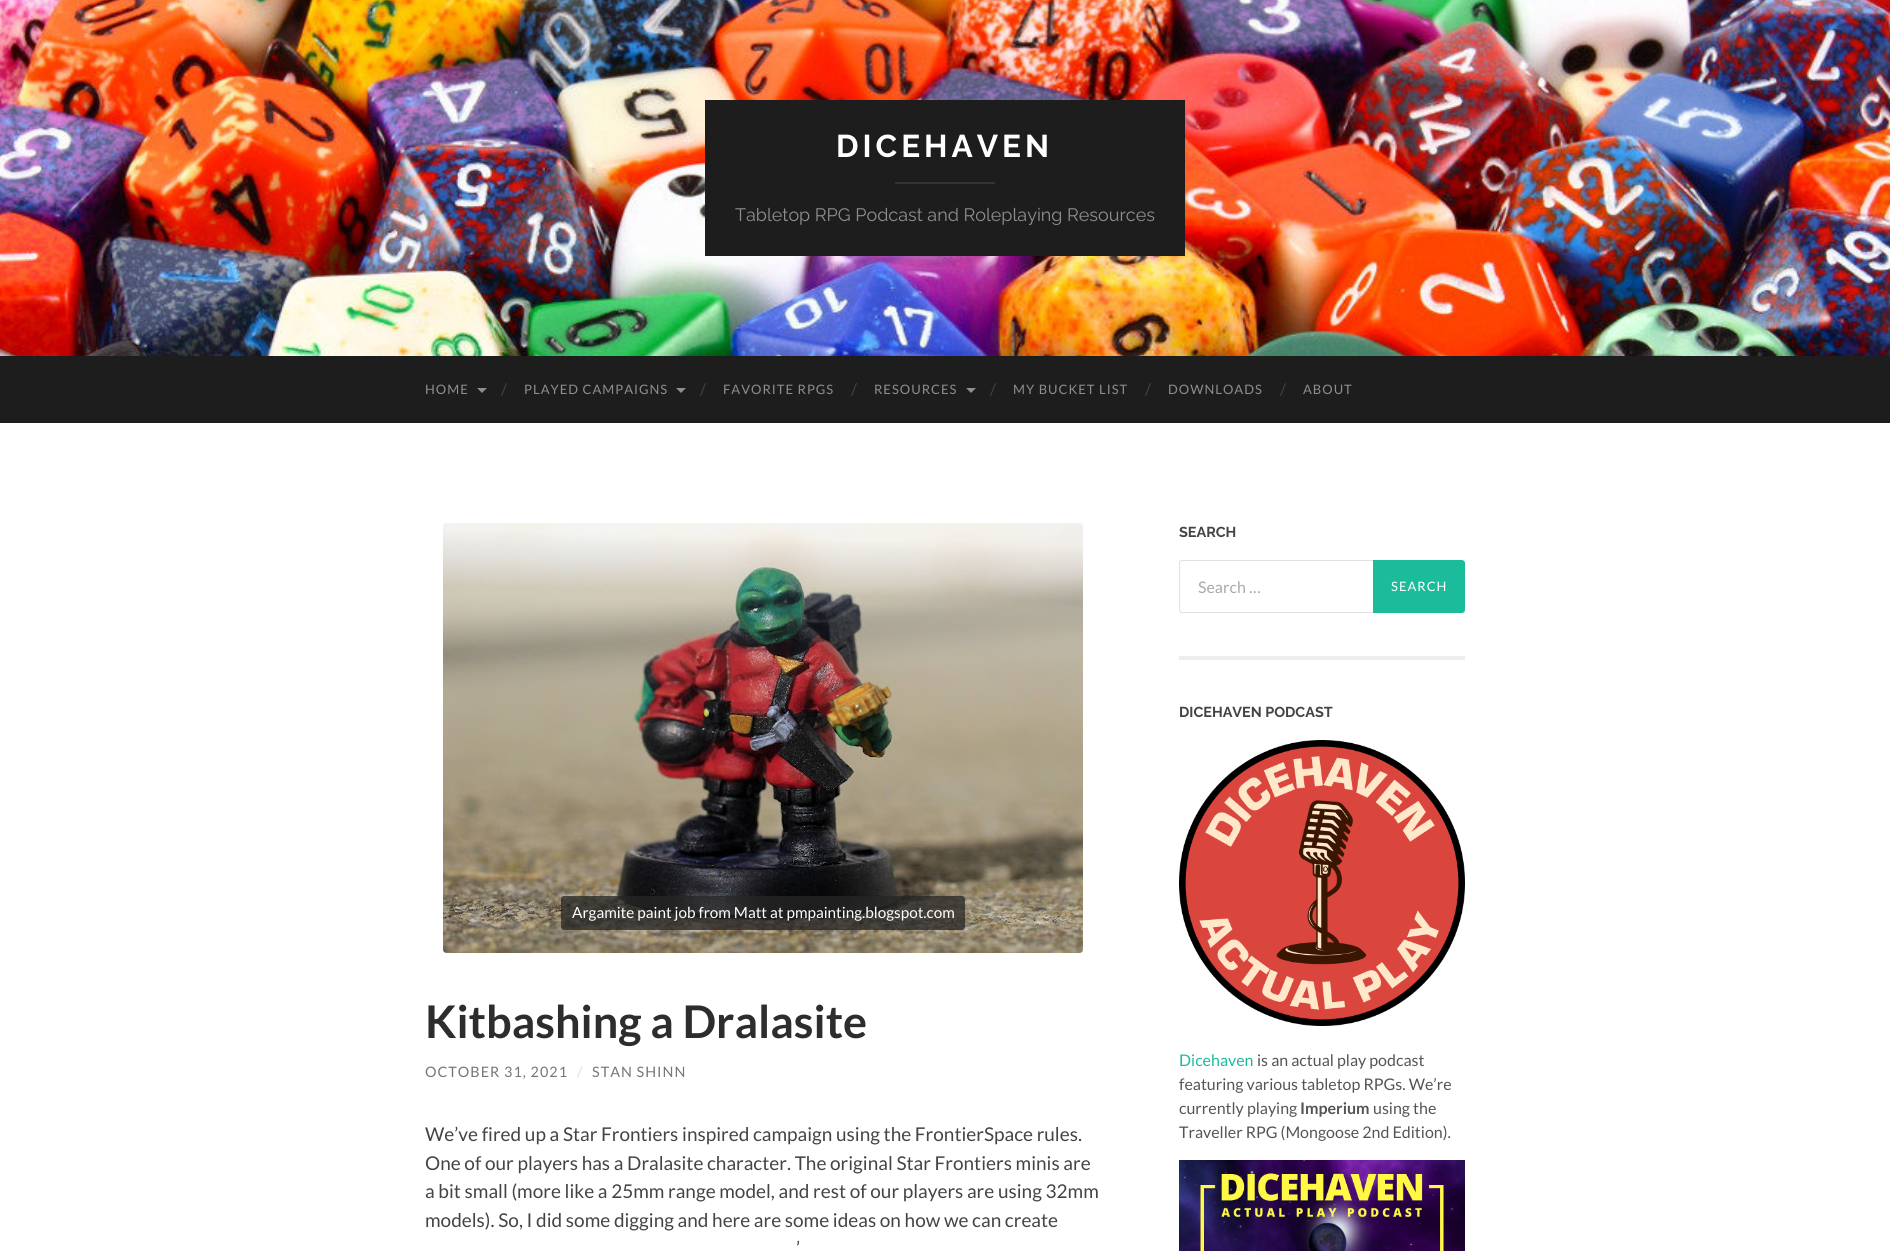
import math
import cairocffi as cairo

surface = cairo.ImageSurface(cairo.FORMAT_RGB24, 1890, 1251)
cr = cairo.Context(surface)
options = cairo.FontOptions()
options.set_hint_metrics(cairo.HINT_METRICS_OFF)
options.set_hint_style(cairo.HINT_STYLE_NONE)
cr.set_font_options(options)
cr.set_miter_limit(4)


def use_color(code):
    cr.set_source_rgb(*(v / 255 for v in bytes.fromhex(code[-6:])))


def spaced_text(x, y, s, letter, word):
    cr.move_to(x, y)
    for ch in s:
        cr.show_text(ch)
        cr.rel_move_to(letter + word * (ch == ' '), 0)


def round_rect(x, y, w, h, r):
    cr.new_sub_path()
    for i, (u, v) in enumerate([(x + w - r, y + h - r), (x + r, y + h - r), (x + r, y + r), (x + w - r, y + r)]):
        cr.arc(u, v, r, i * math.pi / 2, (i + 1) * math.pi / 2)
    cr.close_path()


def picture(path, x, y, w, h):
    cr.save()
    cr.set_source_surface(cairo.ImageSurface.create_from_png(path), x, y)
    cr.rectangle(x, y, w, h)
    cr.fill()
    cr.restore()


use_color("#ffffff")
cr.paint()
picture("img1.png", 0, 0, 1890, 356)
use_color("#1d1d1d")
cr.rectangle(705, 100, 480, 156)
cr.fill()
cr.select_font_face("Raleway Thin")
cr.set_font_size(31.5)
use_color("#ffffff")
spaced_text(836, 157, "DICEHAVEN", 4, 0)
use_color("#343434")
cr.rectangle(895, 182, 100, 2)
cr.fill()
cr.select_font_face("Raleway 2 Thin")
cr.set_font_size(18)
use_color("#8e8e8e")
cr.move_to(735, 221)
cr.show_text("Tabletop RPG Podcast and Roleplaying Resources")
use_color("#1d1d1d")
cr.rectangle(0, 356, 1890, 67)
cr.fill()
cr.select_font_face("Lato")
cr.set_font_size(13)
use_color("#8e8e8e")
spaced_text(425, 394, "HOME", 1, 0)
cr.new_path()
cr.move_to(477, 388)
cr.line_to(487, 388)
cr.line_to(482, 393)
cr.close_path()
cr.fill()
cr.set_font_size(16)
use_color("#444444")
cr.move_to(501, 395)
cr.show_text("/")
cr.set_font_size(13)
use_color("#8e8e8e")
spaced_text(524, 394, "PLAYED CAMPAIGNS", 1, 0)
cr.new_path()
cr.move_to(676, 388)
cr.line_to(686, 388)
cr.line_to(681, 393)
cr.close_path()
cr.fill()
cr.set_font_size(16)
use_color("#444444")
cr.move_to(700, 395)
cr.show_text("/")
cr.set_font_size(13)
use_color("#8e8e8e")
spaced_text(723, 394, "FAVORITE RPGS", 1, 0)
cr.set_font_size(16)
use_color("#444444")
cr.move_to(851, 395)
cr.show_text("/")
cr.set_font_size(13)
use_color("#8e8e8e")
spaced_text(874, 394, "RESOURCES", 1, 0)
cr.new_path()
cr.move_to(966, 388)
cr.line_to(976, 388)
cr.line_to(971, 393)
cr.close_path()
cr.fill()
cr.set_font_size(16)
use_color("#444444")
cr.move_to(990, 395)
cr.show_text("/")
cr.set_font_size(13)
use_color("#8e8e8e")
spaced_text(1013, 394, "MY BUCKET LIST", 1, 0)
cr.set_font_size(16)
use_color("#444444")
cr.move_to(1145, 395)
cr.show_text("/")
cr.set_font_size(13)
use_color("#8e8e8e")
spaced_text(1168, 394, "DOWNLOADS", 1, 0)
cr.set_font_size(16)
use_color("#444444")
cr.move_to(1280, 395)
cr.show_text("/")
cr.set_font_size(13)
use_color("#8e8e8e")
spaced_text(1303, 394, "ABOUT", 1, 0)
picture("img2.png", 443, 523, 640, 430)
cr.set_source_rgba(0.149, 0.149, 0.149, 0.75)
round_rect(561, 896, 404, 34, 3)
cr.fill()
cr.set_font_size(15.3)
use_color("#ffffff")
cr.move_to(572, 918)
cr.show_text("Argamite paint job from Matt at pmpainting.blogspot.com")
cr.select_font_face("Lato", cairo.FONT_SLANT_NORMAL, cairo.FONT_WEIGHT_BOLD)
cr.set_font_size(45)
use_color("#2d2d2d")
cr.move_to(425, 1038)
cr.show_text("Kitbashing a Dralasite")
cr.select_font_face("Lato")
cr.set_font_size(14.4)
use_color("#767676")
spaced_text(425, 1077, "OCTOBER 31, 2021", 1, 0)
use_color("#dddddd")
spaced_text(577, 1077, "/", 1, 0)
use_color("#767676")
spaced_text(592, 1077, "STAN SHINN", 1, 0)
cr.set_font_size(19)
use_color("#444444")
cr.move_to(425, 1141)
cr.show_text("We’ve fired up a Star Frontiers inspired campaign using the FrontierSpace rules.")
cr.move_to(425, 1170)
cr.show_text("One of our players has a Dralasite character. The original Star Frontiers minis are")
cr.move_to(425, 1198)
cr.show_text("a bit small (more like a 25mm range model, and rest of our players are using 32mm")
cr.move_to(425, 1227)
cr.show_text("models). So, I did some digging and here are some ideas on how we can create")
cr.move_to(796, 1255)
cr.show_text("’")
use_color("#eeeeee")
cr.rectangle(1179, 656, 286, 4)
cr.fill()
cr.select_font_face("Raleway Thin")
cr.set_font_size(14.4)
use_color("#444444")
cr.move_to(1179, 537)
cr.show_text("SEARCH")
use_color("#e1e1e3")
cr.set_fill_rule(cairo.FILL_RULE_EVEN_ODD)
cr.new_path()
cr.move_to(1182, 560)
cr.line_to(1373, 560)
cr.line_to(1373, 613)
cr.line_to(1182, 613)
cr.curve_to(1180, 613, 1179, 612, 1179, 610)
cr.line_to(1179, 563)
cr.curve_to(1179, 561, 1180, 560, 1182, 560)
cr.close_path()
cr.move_to(1182, 561)
cr.line_to(1373, 561)
cr.line_to(1373, 612)
cr.line_to(1182, 612)
cr.curve_to(1181, 612, 1180, 611, 1180, 610)
cr.line_to(1180, 563)
cr.curve_to(1180, 562, 1181, 561, 1182, 561)
cr.close_path()
cr.fill()
cr.select_font_face("Lato")
cr.set_font_size(16)
use_color("#a9a9a9")
cr.move_to(1198, 593)
cr.show_text("Search …")
use_color("#1abc9c")
cr.new_path()
cr.move_to(1373, 560)
cr.line_to(1462, 560)
cr.curve_to(1463.5, 560, 1465, 561.5, 1465, 563)
cr.line_to(1465, 610)
cr.curve_to(1465, 611.5, 1463.5, 613, 1462, 613)
cr.line_to(1373, 613)
cr.close_path()
cr.fill()
cr.set_font_size(13)
use_color("#ffffff")
spaced_text(1391, 591, "SEARCH", 1, 0)
cr.select_font_face("Raleway Thin")
cr.set_font_size(14.4)
use_color("#444444")
cr.move_to(1179, 717)
cr.show_text("DICEHAVEN PODCAST")
picture("img3.png", 1179, 740, 286, 286)
cr.select_font_face("Lato")
cr.set_font_size(16)
use_color("#1abc9c")
cr.move_to(1179, 1066)
cr.show_text("Dicehaven")
use_color("#555555")
cr.move_to(1257, 1066)
cr.show_text("is an actual play podcast")
cr.move_to(1179, 1090)
cr.show_text("featuring various tabletop RPGs. We’re")
cr.move_to(1179, 1114)
cr.show_text("currently playing")
cr.select_font_face("Lato", cairo.FONT_SLANT_NORMAL, cairo.FONT_WEIGHT_BOLD)
cr.move_to(1300, 1114)
cr.show_text("Imperium")
cr.select_font_face("Lato")
cr.move_to(1373, 1114)
cr.show_text("using the")
cr.move_to(1179, 1138)
cr.show_text("Traveller RPG (Mongoose 2nd Edition).")
picture("img4.png", 1179, 1160, 286, 91)
surface.write_to_png("result.png")
